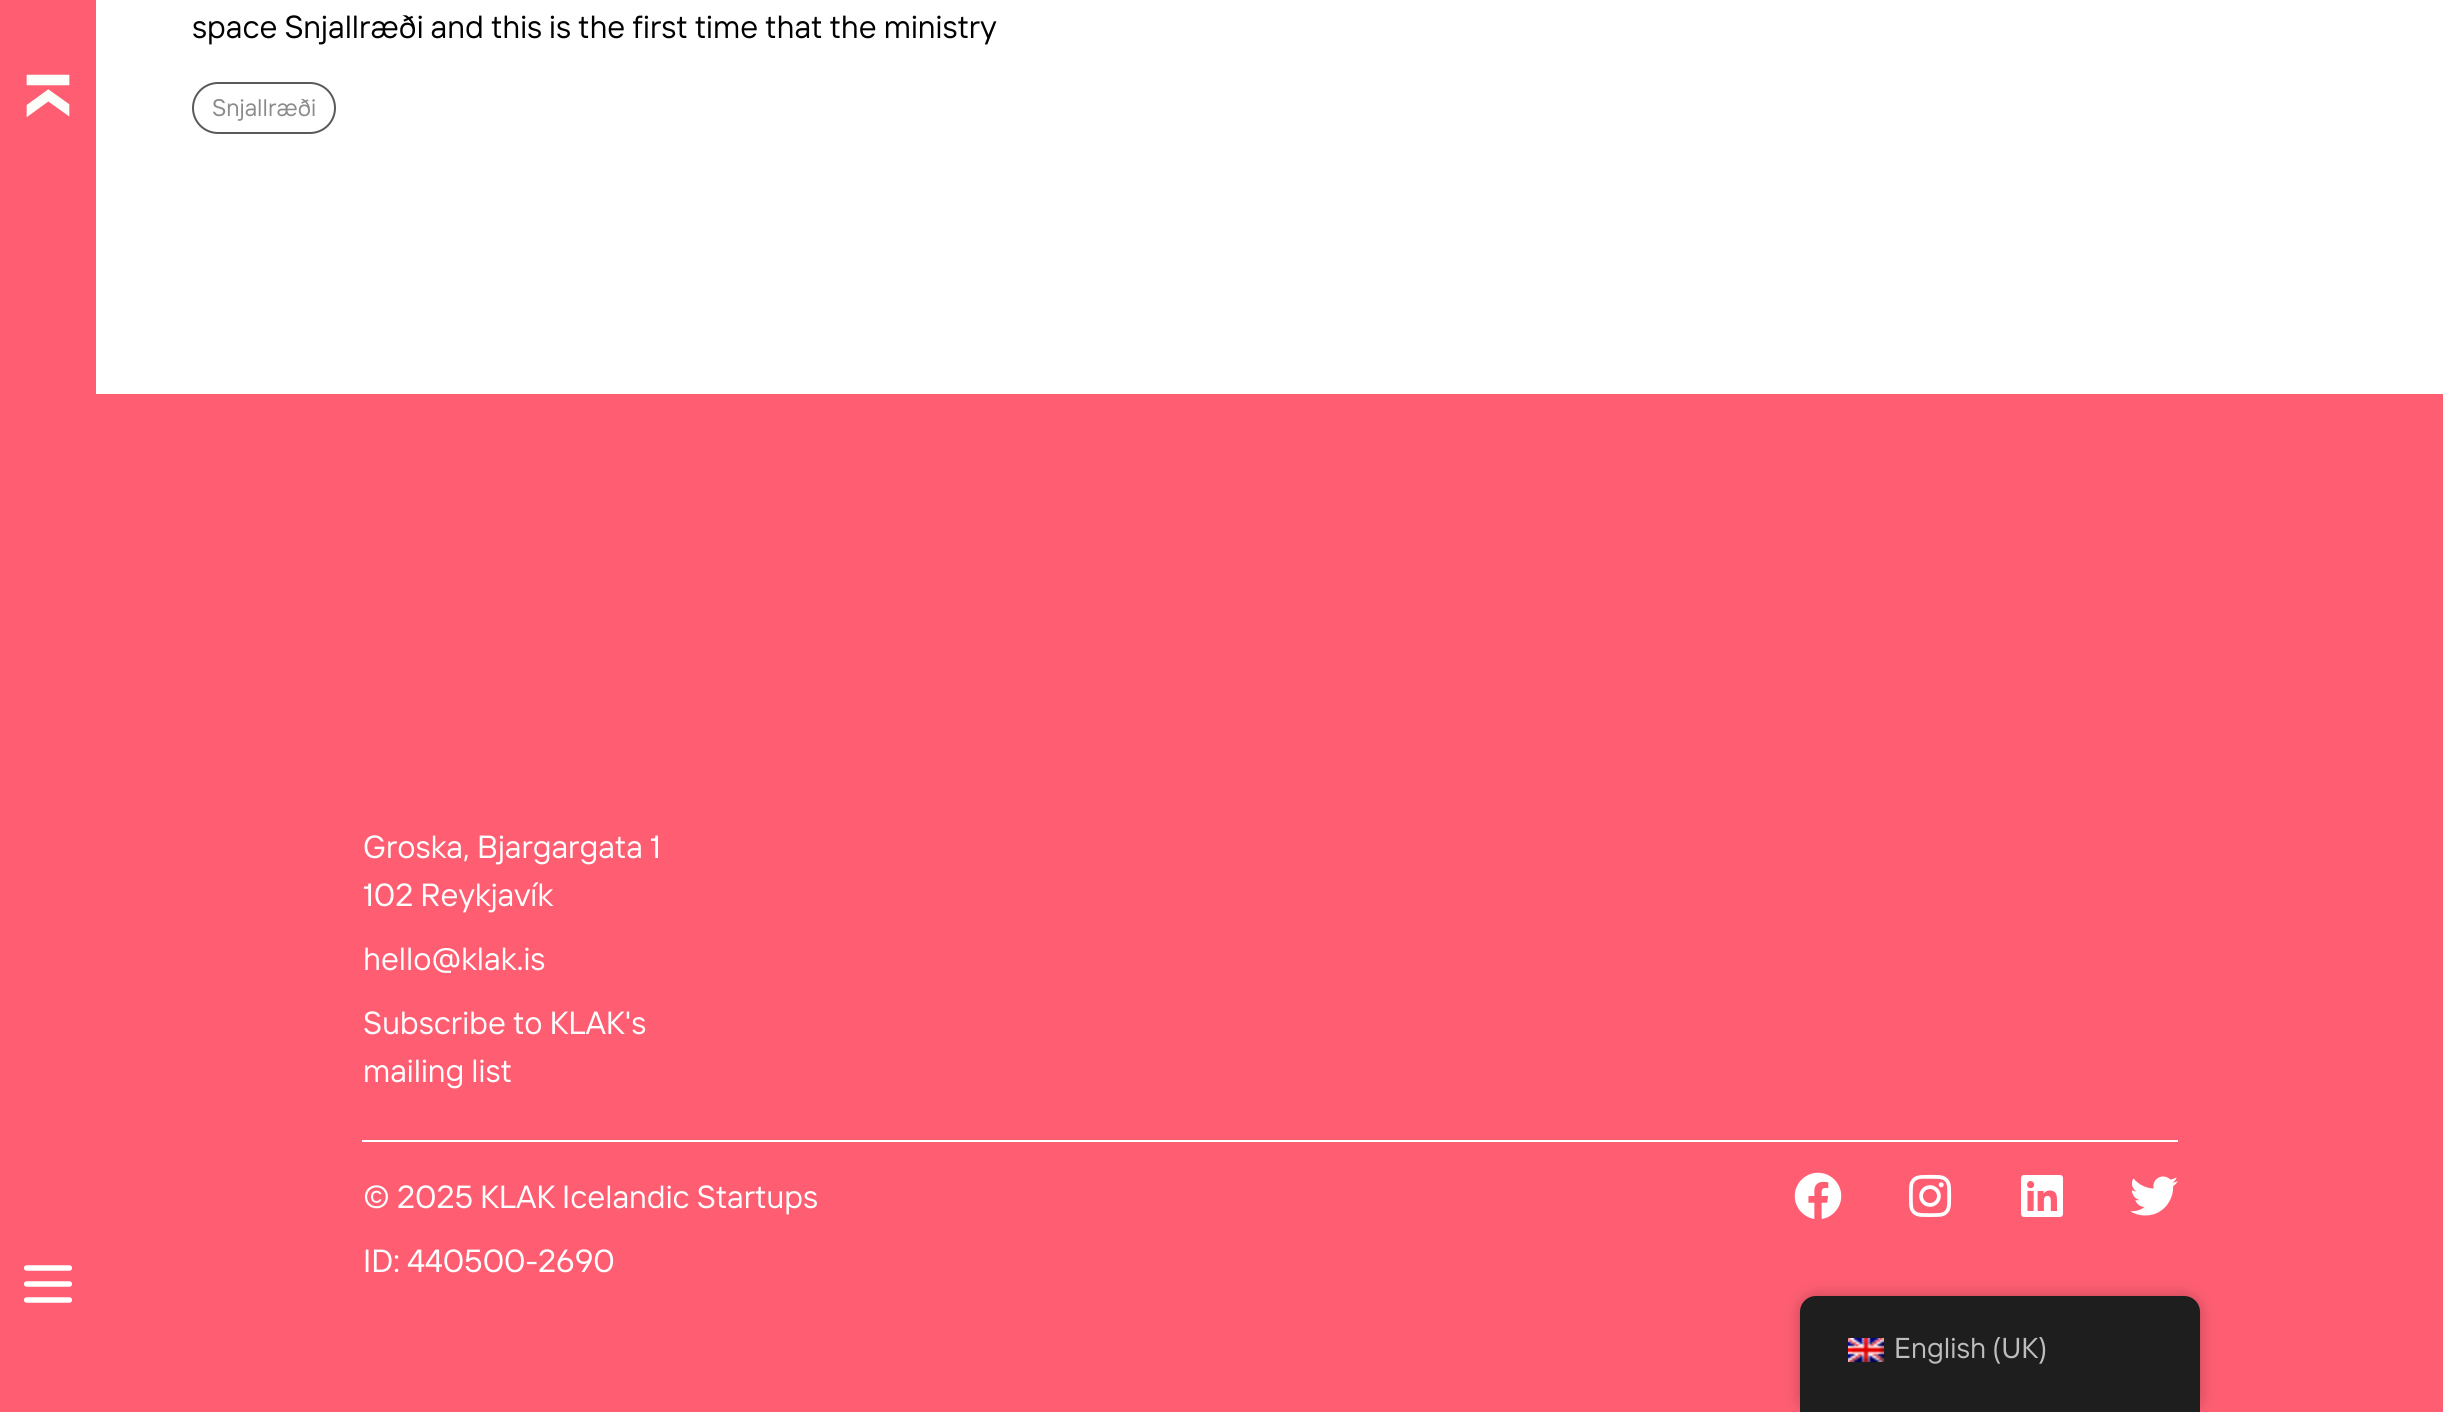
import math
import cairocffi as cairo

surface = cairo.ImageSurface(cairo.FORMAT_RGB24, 2443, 1412)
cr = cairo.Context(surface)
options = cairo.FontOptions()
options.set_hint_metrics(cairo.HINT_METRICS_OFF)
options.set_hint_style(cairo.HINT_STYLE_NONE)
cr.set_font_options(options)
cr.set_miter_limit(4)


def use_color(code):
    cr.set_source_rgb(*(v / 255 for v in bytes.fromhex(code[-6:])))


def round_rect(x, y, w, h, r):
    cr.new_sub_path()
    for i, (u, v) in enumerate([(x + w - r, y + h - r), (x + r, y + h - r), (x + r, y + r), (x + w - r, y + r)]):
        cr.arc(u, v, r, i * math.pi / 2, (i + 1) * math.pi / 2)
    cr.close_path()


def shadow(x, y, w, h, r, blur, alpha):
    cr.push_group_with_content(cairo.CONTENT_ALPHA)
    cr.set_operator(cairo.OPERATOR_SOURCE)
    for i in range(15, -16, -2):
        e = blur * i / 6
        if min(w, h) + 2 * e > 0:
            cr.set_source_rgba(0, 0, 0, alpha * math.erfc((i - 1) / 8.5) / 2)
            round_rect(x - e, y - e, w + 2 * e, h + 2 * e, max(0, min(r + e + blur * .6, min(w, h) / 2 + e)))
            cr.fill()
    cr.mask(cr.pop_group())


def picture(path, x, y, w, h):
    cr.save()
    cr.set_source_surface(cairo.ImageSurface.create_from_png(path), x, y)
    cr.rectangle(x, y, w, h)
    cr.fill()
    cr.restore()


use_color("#ffffff")
cr.paint()
use_color("#ff5e72")
cr.rectangle(0, 0, 96, 1412)
cr.fill()
picture("img1.png", 26, 74, 44, 44)
picture("img2.png", 24, 1265, 48, 38)
cr.select_font_face("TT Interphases")
cr.set_font_size(32)
use_color("#000000")
cr.move_to(192, 38)
cr.show_text("space Snjallræði and this is the first time that the ministry")
round_rect(193, 83, 142, 50, 25)
use_color("#5a5a5a")
cr.stroke()
cr.set_font_size(24)
use_color("#8b8b8b")
cr.move_to(212, 116)
cr.show_text("Snjallræði")
use_color("#ff5e72")
cr.rectangle(96, 394, 2347, 1018)
cr.fill()
cr.set_font_size(32)
use_color("#ffffff")
cr.move_to(363, 858)
cr.show_text("Groska, Bjargargata 1")
cr.move_to(363, 906)
cr.show_text("102 Reykjavík")
cr.move_to(363, 970)
cr.show_text("hello@klak.is")
cr.move_to(363, 1034)
cr.show_text("Subscribe to KLAK's")
cr.move_to(363, 1082)
cr.show_text("mailing list")
cr.rectangle(362, 1140, 1816, 2)
cr.fill()
cr.move_to(363, 1208)
cr.show_text("© 2025 KLAK Icelandic Startups")
cr.move_to(363, 1272)
cr.show_text("ID: 440500-2690")
picture("img3.png", 1794, 1172, 48, 47)
picture("img4.png", 1909, 1174, 43, 43)
picture("img5.png", 2021, 1175, 42, 42)
picture("img6.png", 2130, 1176, 48, 40)
use_color("#000000")
shadow(1800, 1296, 400, 116, 16, 8, 0.25)
use_color("#1e1e1e")
cr.new_path()
cr.move_to(1816, 1296)
cr.line_to(2184, 1296)
cr.curve_to(2193, 1296, 2200, 1303, 2200, 1312)
cr.line_to(2200, 1412)
cr.line_to(1800, 1412)
cr.line_to(1800, 1312)
cr.curve_to(1800, 1303, 1807, 1296, 1816, 1296)
cr.close_path()
cr.fill()
picture("img7.png", 1848, 1338, 36, 24)
cr.set_font_size(28.75)
use_color("#bdbdbd")
cr.move_to(1894, 1358)
cr.show_text("English (UK)")
surface.write_to_png("result.png")
